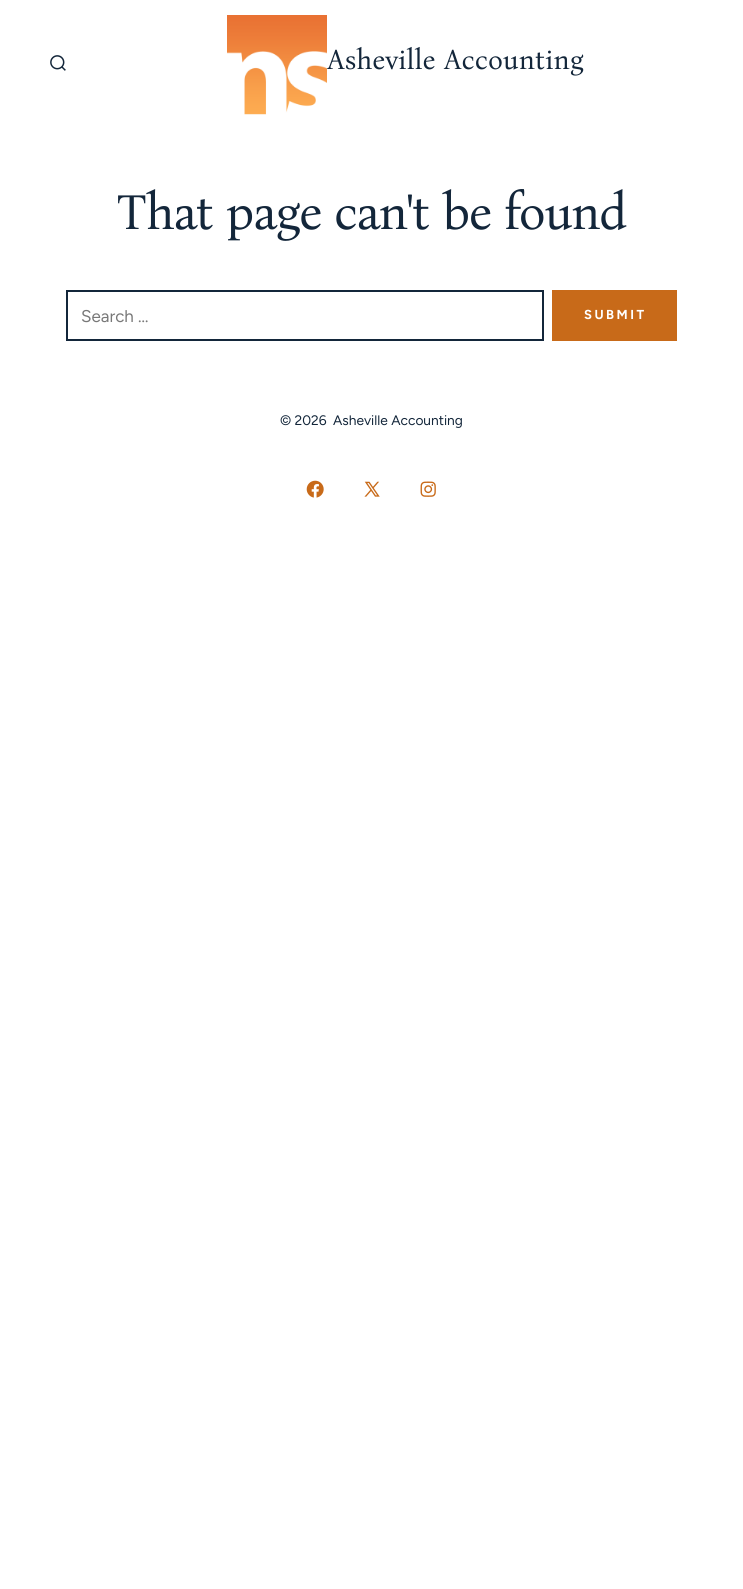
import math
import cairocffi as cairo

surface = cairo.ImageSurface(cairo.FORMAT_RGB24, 743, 1589)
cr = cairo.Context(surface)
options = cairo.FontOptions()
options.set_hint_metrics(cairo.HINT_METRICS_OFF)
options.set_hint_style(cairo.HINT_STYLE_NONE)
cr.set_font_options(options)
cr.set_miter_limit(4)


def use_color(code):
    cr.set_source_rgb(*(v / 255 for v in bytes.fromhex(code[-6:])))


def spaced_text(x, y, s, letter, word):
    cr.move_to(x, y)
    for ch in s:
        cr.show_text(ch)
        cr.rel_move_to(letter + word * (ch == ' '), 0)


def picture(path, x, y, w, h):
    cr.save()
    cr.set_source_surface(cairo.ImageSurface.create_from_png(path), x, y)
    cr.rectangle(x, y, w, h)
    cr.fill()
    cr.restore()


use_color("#ffffff")
cr.paint()
picture("img1.png", 50, 55, 16, 16)
picture("img2.png", 227, 15, 100, 100)
cr.select_font_face("Bona Nova")
cr.set_font_size(28)
use_color("#13263a")
cr.move_to(327, 69)
cr.show_text("Asheville Accounting")
cr.set_font_size(50.5)
spaced_text(116, 229, "That page can't be found", -1.6, 0)
cr.rectangle(67, 291, 476, 49)
cr.stroke()
cr.select_font_face("Figtree")
cr.set_font_size(17)
use_color("#787878")
cr.move_to(81, 322)
cr.show_text("Search …")
use_color("#c86a19")
cr.rectangle(552, 290, 125, 51)
cr.fill()
cr.select_font_face("Figtree", cairo.FONT_SLANT_NORMAL, cairo.FONT_WEIGHT_BOLD)
cr.set_font_size(13)
use_color("#ffffff")
spaced_text(584, 319, "SUBMIT", 2.5, 0)
cr.select_font_face("Figtree")
cr.set_font_size(13.75)
use_color("#13263a")
cr.move_to(280, 425)
cr.show_text("© 2026")
cr.move_to(333, 425)
cr.show_text("Asheville Accounting")
picture("img3.png", 306, 480, 18, 18)
picture("img4.png", 364, 481, 16, 16)
picture("img5.png", 420, 481, 16, 16)
surface.write_to_png("result.png")
